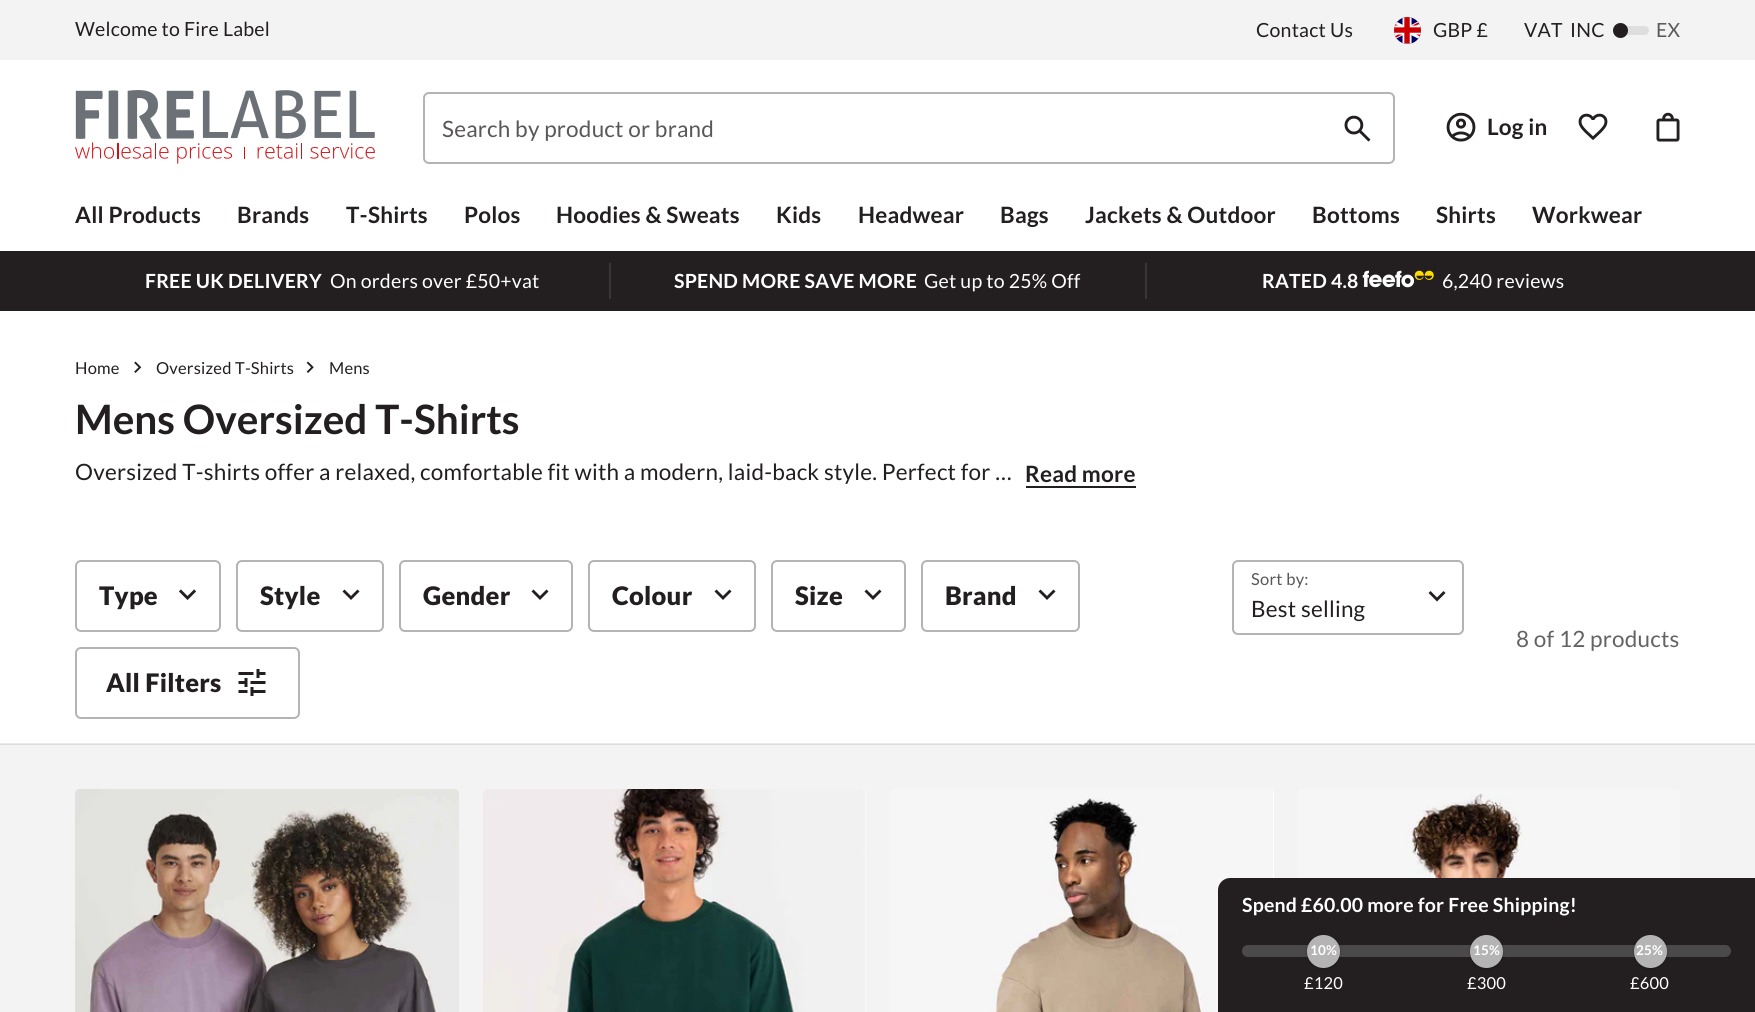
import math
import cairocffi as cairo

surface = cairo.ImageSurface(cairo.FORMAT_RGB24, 1755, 1012)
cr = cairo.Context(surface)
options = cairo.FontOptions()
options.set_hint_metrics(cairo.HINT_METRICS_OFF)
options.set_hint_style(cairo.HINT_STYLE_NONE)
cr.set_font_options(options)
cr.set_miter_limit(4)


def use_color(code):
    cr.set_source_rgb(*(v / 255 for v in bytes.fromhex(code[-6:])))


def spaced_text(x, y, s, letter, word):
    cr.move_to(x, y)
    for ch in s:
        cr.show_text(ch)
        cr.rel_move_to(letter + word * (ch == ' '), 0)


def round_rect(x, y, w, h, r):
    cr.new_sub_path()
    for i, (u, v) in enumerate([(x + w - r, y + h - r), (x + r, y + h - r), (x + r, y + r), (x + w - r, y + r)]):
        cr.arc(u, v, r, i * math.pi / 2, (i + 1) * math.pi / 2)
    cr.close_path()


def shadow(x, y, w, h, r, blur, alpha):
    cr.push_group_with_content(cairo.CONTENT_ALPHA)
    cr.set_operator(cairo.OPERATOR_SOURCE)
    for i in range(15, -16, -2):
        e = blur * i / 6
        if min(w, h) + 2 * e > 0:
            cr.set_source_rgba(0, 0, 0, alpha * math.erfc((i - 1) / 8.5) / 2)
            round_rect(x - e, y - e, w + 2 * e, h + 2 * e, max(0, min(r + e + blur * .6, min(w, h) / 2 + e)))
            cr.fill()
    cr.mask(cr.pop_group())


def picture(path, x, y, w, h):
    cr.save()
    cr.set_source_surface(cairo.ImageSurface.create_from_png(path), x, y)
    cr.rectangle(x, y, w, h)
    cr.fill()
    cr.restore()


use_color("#ffffff")
cr.paint()
use_color("#e9e9e9")
cr.rectangle(0, 743, 1755, 1)
cr.fill()
use_color("#f3f3f3")
cr.rectangle(0, 0, 1755, 60)
cr.fill()
cr.select_font_face("Lato")
cr.set_font_size(19.5)
use_color("#231f20")
spaced_text(75, 36, "Welcome to Fire Label", 0.2, 0)
spaced_text(1256, 37, "Contact Us", 0.2, 0)
picture("img1.png", 1394, 17, 27, 27)
spaced_text(1433, 37, "GBP £", 0.2, 0)
spaced_text(1524, 37, "VAT", 0.2, 0)
spaced_text(1570, 37, "INC", 0.2, 0)
cr.new_path()
cr.arc(1620.5, 30.5, 7.5, 0, 2 * math.pi)
cr.fill()
cr.set_source_rgba(0.137, 0.122, 0.125, 0.1)
round_rect(1613, 26, 36, 9, 4.5)
cr.fill()
use_color("#5a5758")
spaced_text(1656, 37, "EX", 0.2, 0)
picture("img2.png", 75, 90, 300, 74)
picture("img3.png", 1344, 115, 27, 27)
round_rect(424, 93, 970, 70, 5)
use_color("#b4b4b4")
cr.stroke()
cr.set_font_size(22.5)
use_color("#5a5758")
spaced_text(442, 137, "Search by product or brand", 0.22, 0)
picture("img4.png", 1446, 112, 30, 30)
cr.select_font_face("Lato", cairo.FONT_SLANT_NORMAL, cairo.FONT_WEIGHT_BOLD)
use_color("#231f20")
spaced_text(1487, 135, "Log in", 0.22, 0)
picture("img5.png", 1578, 113, 30, 27)
picture("img6.png", 1656, 112, 24, 30)
spaced_text(75, 223, "All Products", 0.22, 0)
spaced_text(237, 223, "Brands", 0.22, 0)
spaced_text(346, 223, "T-Shirts", 0.22, 0)
spaced_text(464, 223, "Polos", 0.22, 0)
spaced_text(556, 223, "Hoodies & Sweats", 0.22, 0)
spaced_text(776, 223, "Kids", 0.22, 0)
spaced_text(858, 223, "Headwear", 0.22, 0)
spaced_text(1000, 223, "Bags", 0.22, 0)
spaced_text(1085, 223, "Jackets & Outdoor", 0.22, 0)
spaced_text(1312, 223, "Bottoms", 0.22, 0)
spaced_text(1436, 223, "Shirts", 0.22, 0)
spaced_text(1532, 223, "Workwear", 0.22, 0)
cr.rectangle(0, 251, 1755, 60)
cr.fill()
use_color("#393536")
cr.rectangle(609, 263, 2, 36)
cr.fill()
cr.set_font_size(19.5)
use_color("#ffffff")
spaced_text(145, 288, "FREE UK DELIVERY", 0.2, 0)
cr.select_font_face("Lato")
spaced_text(330, 288, "On orders over £50+vat", 0.2, 0)
use_color("#393536")
cr.rectangle(1145, 263, 2, 36)
cr.fill()
cr.select_font_face("Lato", cairo.FONT_SLANT_NORMAL, cairo.FONT_WEIGHT_BOLD)
use_color("#ffffff")
spaced_text(674, 288, "SPEND MORE SAVE MORE", 0.2, 0)
cr.select_font_face("Lato")
spaced_text(924, 288, "Get up to 25% Off", 0.2, 0)
cr.select_font_face("Lato", cairo.FONT_SLANT_NORMAL, cairo.FONT_WEIGHT_BOLD)
spaced_text(1262, 288, "RATED 4.8", 0.2, 0)
picture("img7.png", 1362, 270, 72, 18)
cr.select_font_face("Lato")
spaced_text(1442, 288, "6,240 reviews", 0.2, 0)
cr.set_font_size(16.5)
use_color("#231f20")
spaced_text(75, 374, "Home", 0.2, 0)
picture("img8.png", 134, 361, 8, 12)
spaced_text(156, 374, "Oversized T-Shirts", 0.2, 0)
picture("img9.png", 306, 361, 8, 12)
spaced_text(329, 374, "Mens", 0.2, 0)
cr.select_font_face("Lato", cairo.FONT_SLANT_NORMAL, cairo.FONT_WEIGHT_BOLD)
cr.set_font_size(40.5)
cr.move_to(75, 434)
cr.show_text("Mens Oversized T-Shirts")
cr.select_font_face("Lato")
cr.set_font_size(22.5)
spaced_text(75, 480, "Oversized T-shirts offer a relaxed, comfortable fit with a modern, laid-back style. Perfect for …", 0.22, 0)
cr.select_font_face("Lato", cairo.FONT_SLANT_NORMAL, cairo.FONT_WEIGHT_BOLD)
spaced_text(1025, 482, "Read more", 0.22, 0)
cr.rectangle(1026, 486, 110, 2)
cr.fill()
picture("img10.png", 179, 589, 17, 11)
round_rect(76, 561, 144, 70, 5)
use_color("#b4b4b4")
cr.stroke()
cr.select_font_face("Lato Black")
cr.set_font_size(25.5)
use_color("#231f20")
spaced_text(99, 605, "Type", 0.25, 0)
cr.new_path()
cr.move_to(351, 600)
cr.line_to(342.5, 591.5)
cr.line_to(344.5, 589.5)
cr.line_to(351, 596)
cr.line_to(357.5, 589.5)
cr.line_to(359.5, 591.5)
cr.close_path()
cr.fill()
round_rect(237, 561, 146, 70, 5)
use_color("#b4b4b4")
cr.stroke()
use_color("#231f20")
spaced_text(260, 605, "Style", 0.25, 0)
cr.new_path()
cr.move_to(540, 600)
cr.line_to(531.5, 591.5)
cr.line_to(533.5, 589.5)
cr.line_to(540, 596)
cr.line_to(546.5, 589.5)
cr.line_to(548.5, 591.5)
cr.close_path()
cr.fill()
round_rect(400, 561, 172, 70, 5)
use_color("#b4b4b4")
cr.stroke()
use_color("#231f20")
spaced_text(423, 605, "Gender", 0.25, 0)
cr.new_path()
cr.move_to(723, 600)
cr.line_to(714.5, 591.5)
cr.line_to(716.5, 589.5)
cr.line_to(723, 596)
cr.line_to(729.5, 589.5)
cr.line_to(731.5, 591.5)
cr.close_path()
cr.fill()
round_rect(589, 561, 166, 70, 5)
use_color("#b4b4b4")
cr.stroke()
use_color("#231f20")
spaced_text(612, 605, "Colour", 0.25, 0)
cr.new_path()
cr.move_to(873, 600)
cr.line_to(864.5, 591.5)
cr.line_to(866.5, 589.5)
cr.line_to(873, 596)
cr.line_to(879.5, 589.5)
cr.line_to(881.5, 591.5)
cr.close_path()
cr.fill()
round_rect(772, 561, 133, 70, 5)
use_color("#b4b4b4")
cr.stroke()
use_color("#231f20")
spaced_text(795, 605, "Size", 0.25, 0)
cr.new_path()
cr.move_to(1047, 600)
cr.line_to(1038.5, 591.5)
cr.line_to(1040.5, 589.5)
cr.line_to(1047, 596)
cr.line_to(1053.5, 589.5)
cr.line_to(1055.5, 591.5)
cr.close_path()
cr.fill()
round_rect(922, 561, 157, 70, 5)
use_color("#b4b4b4")
cr.stroke()
use_color("#231f20")
spaced_text(945, 605, "Brand", 0.25, 0)
picture("img11.png", 238, 669, 28, 27)
round_rect(76, 648, 223, 70, 5)
use_color("#b4b4b4")
cr.stroke()
use_color("#231f20")
spaced_text(106, 692, "All Filters", 0.25, 0)
cr.new_path()
cr.move_to(1437, 601.5)
cr.line_to(1428.5, 593)
cr.line_to(1430.5, 591)
cr.line_to(1437, 597.5)
cr.line_to(1443.5, 591)
cr.line_to(1445.5, 593)
cr.close_path()
cr.fill()
round_rect(1233, 561, 230, 73, 5)
use_color("#b4b4b4")
cr.stroke()
cr.select_font_face("Lato")
cr.set_font_size(16.5)
use_color("#5a5758")
spaced_text(1251, 585, "Sort by:", 0.25, 0)
cr.set_font_size(22.5)
use_color("#231f20")
spaced_text(1251, 617, "Best selling", 0.22, 0)
use_color("#656263")
spaced_text(1516, 647, "8 of 12 products", 0.22, 0)
use_color("#f3f3f3")
cr.rectangle(0, 745, 1755, 267)
cr.fill()
use_color("#dedede")
cr.rectangle(0, 744, 1755, 1)
cr.fill()
picture("img12.png", 75, 789, 384, 223)
use_color("#ffffff")
cr.new_path()
cr.move_to(488, 789)
cr.line_to(861, 789)
cr.curve_to(864, 789, 866, 791, 866, 794)
cr.line_to(866, 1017)
cr.line_to(483, 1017)
cr.line_to(483, 794)
cr.curve_to(483, 791, 485, 789, 488, 789)
cr.close_path()
cr.fill()
picture("img13.png", 483, 789, 383, 223)
cr.new_path()
cr.move_to(895, 789)
cr.line_to(1269, 789)
cr.curve_to(1272, 789, 1274, 791, 1274, 794)
cr.line_to(1274, 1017)
cr.line_to(890, 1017)
cr.line_to(890, 794)
cr.curve_to(890, 791, 892, 789, 895, 789)
cr.close_path()
cr.fill()
picture("img14.png", 890, 789, 383, 223)
picture("img15.png", 1298, 789, 382, 89)
use_color("#231f20")
cr.new_path()
cr.move_to(1230, 878)
cr.line_to(1755, 878)
cr.line_to(1755, 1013)
cr.line_to(1218, 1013)
cr.line_to(1218, 890)
cr.curve_to(1218, 883.5, 1223.5, 878, 1230, 878)
cr.close_path()
cr.fill()
cr.select_font_face("Lato", cairo.FONT_SLANT_NORMAL, cairo.FONT_WEIGHT_BOLD)
cr.set_font_size(19.5)
use_color("#ffffff")
spaced_text(1242, 912, "Spend £60.00 more for Free Shipping!", 0.2, 0)
use_color("#393536")
round_rect(1242, 945, 489, 12, 6)
cr.fill()
cr.set_source_rgba(1, 1, 1, 0.1)
round_rect(1242, 945, 489, 12, 6)
cr.fill()
use_color("#000000")
shadow(1307, 936, 33, 33, 16.5, 1.5, 0.25)
use_color("#b4b4b4")
cr.arc(1323.5, 951.5, 16.5, 0, 2 * math.pi)
cr.fill()
cr.set_font_size(13.5)
use_color("#ffffff")
spaced_text(1310, 955, "10%", 0.22, 0)
use_color("#000000")
shadow(1470, 936, 33, 33, 16.5, 1.5, 0.25)
use_color("#b4b4b4")
cr.arc(1486.5, 951.5, 16.5, 0, 2 * math.pi)
cr.fill()
use_color("#ffffff")
spaced_text(1473, 955, "15%", 0.22, 0)
use_color("#000000")
shadow(1634, 936, 33, 33, 16.5, 1.5, 0.25)
use_color("#b4b4b4")
cr.arc(1650.5, 951.5, 16.5, 0, 2 * math.pi)
cr.fill()
use_color("#ffffff")
spaced_text(1636, 955, "25%", 0.22, 0)
cr.select_font_face("Lato")
cr.set_font_size(16.5)
spaced_text(1304, 989, "£120", 0.22, 0)
spaced_text(1467, 989, "£300", 0.22, 0)
spaced_text(1630, 989, "£600", 0.22, 0)
surface.write_to_png("result.png")
